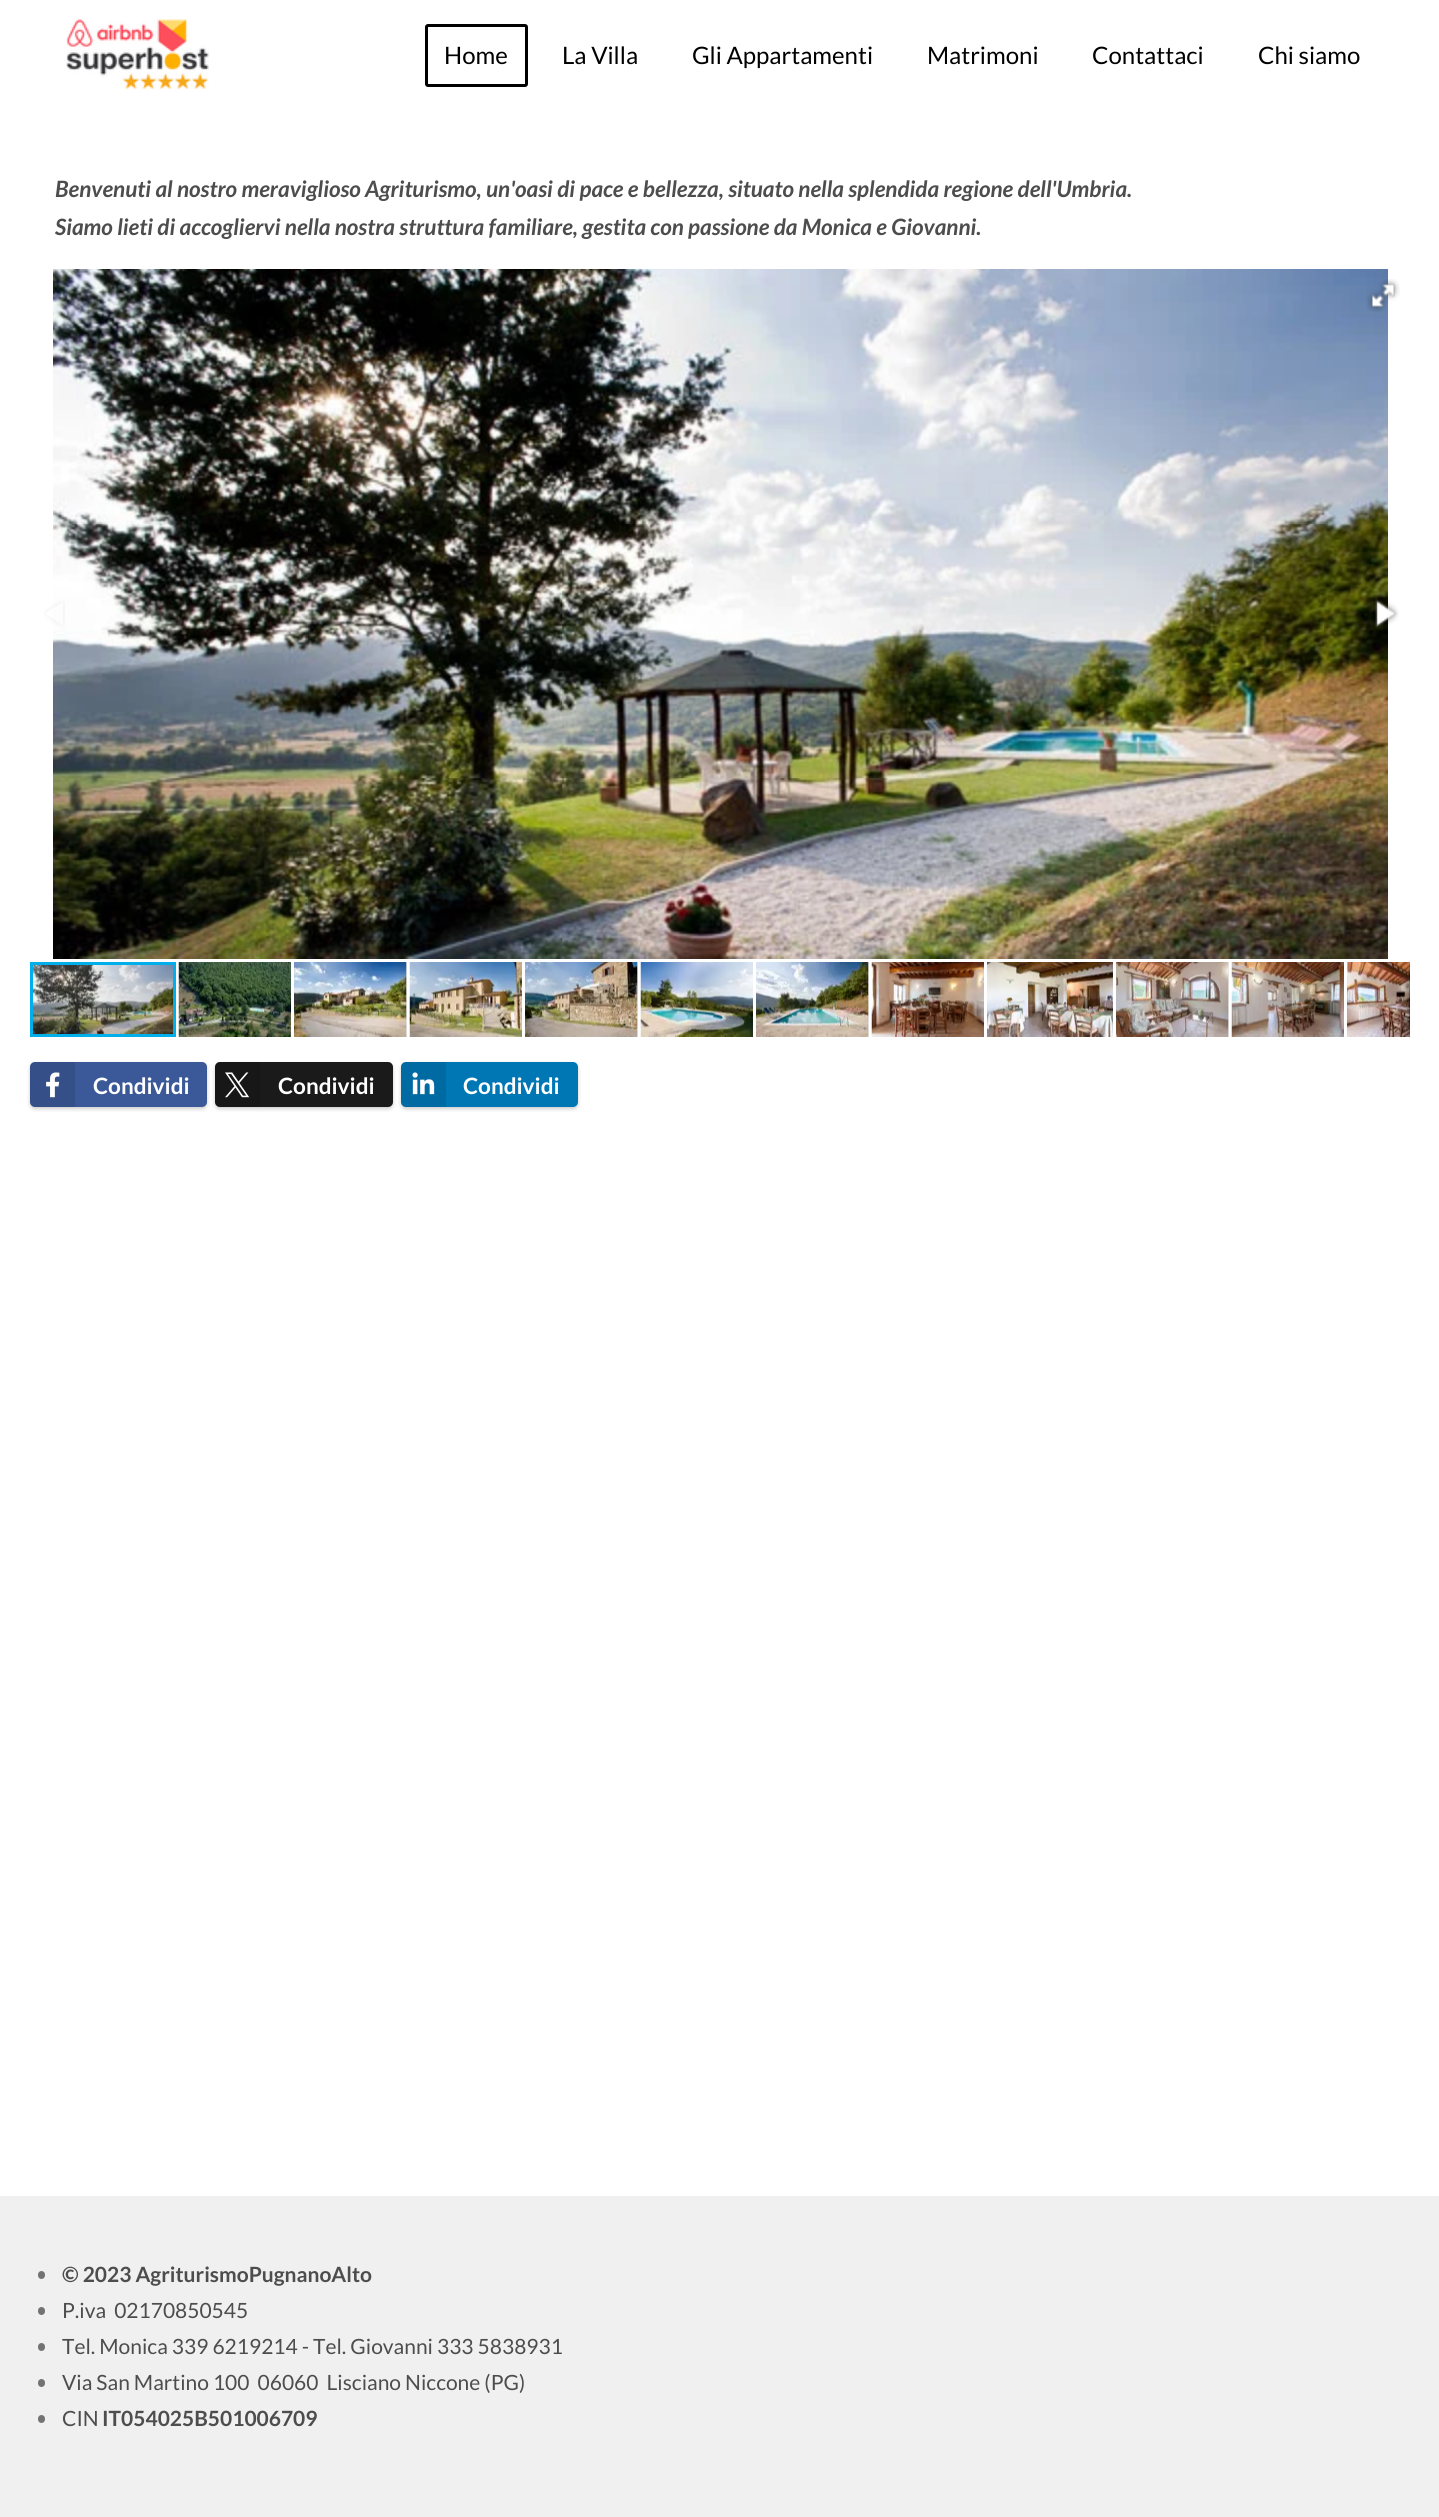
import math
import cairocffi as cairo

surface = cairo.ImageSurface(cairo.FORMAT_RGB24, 1439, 2517)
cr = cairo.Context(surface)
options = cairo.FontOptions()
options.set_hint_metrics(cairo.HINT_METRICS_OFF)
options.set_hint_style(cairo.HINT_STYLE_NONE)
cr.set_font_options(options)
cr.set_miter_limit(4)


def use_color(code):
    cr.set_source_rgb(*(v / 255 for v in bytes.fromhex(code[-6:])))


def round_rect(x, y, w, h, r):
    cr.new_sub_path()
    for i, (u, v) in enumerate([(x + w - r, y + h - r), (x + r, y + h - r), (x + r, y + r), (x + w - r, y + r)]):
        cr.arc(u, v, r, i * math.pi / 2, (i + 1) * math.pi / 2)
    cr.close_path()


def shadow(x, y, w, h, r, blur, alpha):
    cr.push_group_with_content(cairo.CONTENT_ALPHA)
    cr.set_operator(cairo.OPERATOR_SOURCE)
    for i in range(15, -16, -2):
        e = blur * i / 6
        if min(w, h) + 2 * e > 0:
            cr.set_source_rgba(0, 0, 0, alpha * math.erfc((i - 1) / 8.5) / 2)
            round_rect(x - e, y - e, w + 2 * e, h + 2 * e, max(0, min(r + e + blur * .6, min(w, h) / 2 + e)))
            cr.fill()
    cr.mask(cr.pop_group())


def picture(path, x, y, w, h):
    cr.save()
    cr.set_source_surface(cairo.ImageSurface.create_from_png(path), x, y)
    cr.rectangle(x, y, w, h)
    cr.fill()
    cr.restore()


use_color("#ffffff")
cr.paint()
picture("img1.png", 66, 19, 143, 71)
round_rect(426.5, 25.5, 100, 60, 1.5)
use_color("#000000")
cr.set_line_width(3)
cr.stroke()
cr.select_font_face("Lato")
cr.set_font_size(24)
cr.move_to(444, 64)
cr.show_text("Home")
cr.move_to(562, 64)
cr.show_text("La Villa")
cr.move_to(692, 64)
cr.show_text("Gli Appartamenti")
cr.move_to(927, 64)
cr.show_text("Matrimoni")
cr.move_to(1092, 64)
cr.show_text("Contattaci")
cr.move_to(1258, 64)
cr.show_text("Chi siamo")
cr.select_font_face("Lato", cairo.FONT_SLANT_ITALIC, cairo.FONT_WEIGHT_BOLD)
cr.set_font_size(22.5)
use_color("#4d4d4d")
cr.move_to(55, 197)
cr.show_text("Benvenuti al nostro meraviglioso Agriturismo, un'oasi di pace e bellezza, situato nella splendida regione dell'Umbria.")
cr.move_to(55, 235)
cr.show_text("Siamo lieti di accogliervi nella nostra struttura familiare, gestita con passione da Monica e Giovanni.")
picture("img2.png", 53, 269, 1335, 690)
picture("img3.png", 1366, 279, 34, 33)
picture("img4.png", 44, 601, 21, 26)
picture("img5.png", 1373, 599, 26, 29)
picture("img16.png", 1347, 962, 63, 75)
gradient = cairo.RadialGradient(0, 0, 0, 0, 0, 1)
gradient.set_matrix(cairo.Matrix(1 / 7.5, 0, 0, 1 / 41, -1 * 1410 / 7.5, -1 * 999 / 41))
gradient.add_color_stop_rgba(0, 0, 0, 0, 0.4)
gradient.add_color_stop_rgba(1, 0, 0, 0, 0)
cr.set_source(gradient)
cr.rectangle(1403, 959, 7, 81)
cr.fill()
gradient = cairo.LinearGradient(1409, 959, 1409, 1040)
gradient.add_color_stop_rgba(0, 0, 0, 0, 0)
gradient.add_color_stop_rgba(0.25, 0, 0, 0, 0.2)
gradient.add_color_stop_rgba(0.75, 0, 0, 0, 0.3)
gradient.add_color_stop_rgba(1, 0, 0, 0, 0)
cr.set_source(gradient)
cr.rectangle(1409, 959, 1, 81)
cr.fill()
picture("img17.png", 33, 965, 140, 69)
cr.rectangle(31.5, 963.5, 143, 72)
use_color("#00afea")
cr.stroke()
picture("img6.png", 178, 962, 113, 75)
use_color("#e6e6e6")
cr.rectangle(406, 962, 1, 75)
cr.fill()
picture("img7.png", 294, 962, 113, 75)
picture("img8.png", 409, 962, 113, 75)
cr.rectangle(637, 962, 1, 75)
cr.fill()
picture("img9.png", 525, 962, 113, 75)
picture("img10.png", 640, 962, 113, 75)
cr.rectangle(868, 962, 1, 75)
cr.fill()
picture("img11.png", 756, 962, 113, 75)
picture("img12.png", 871, 962, 113, 75)
picture("img13.png", 987, 962, 126, 75)
cr.rectangle(1228, 962, 1, 75)
cr.fill()
picture("img14.png", 1116, 962, 113, 75)
picture("img15.png", 1231, 962, 113, 75)
use_color("#000000")
shadow(30, 1064, 177, 45, 5, 2, 0.2)
use_color("#3b5998")
round_rect(30, 1062, 177, 45, 5)
cr.fill()
cr.set_source_rgba(0, 0, 0, 0.1)
cr.new_path()
cr.move_to(35, 1062)
cr.line_to(75, 1062)
cr.line_to(75, 1107)
cr.line_to(35, 1107)
cr.curve_to(32, 1107, 30, 1105, 30, 1102)
cr.line_to(30, 1067)
cr.curve_to(30, 1064, 32, 1062, 35, 1062)
cr.close_path()
cr.fill()
picture("img18.png", 46, 1072, 14, 26)
cr.select_font_face("Lato", cairo.FONT_SLANT_NORMAL, cairo.FONT_WEIGHT_BOLD)
use_color("#ffffff")
cr.move_to(93, 1094)
cr.show_text("Condividi")
use_color("#000000")
shadow(215, 1064, 178, 45, 5, 2, 0.2)
use_color("#1a1a1a")
round_rect(215, 1062, 178, 45, 5)
cr.fill()
cr.set_source_rgba(0, 0, 0, 0.1)
cr.new_path()
cr.move_to(220, 1062)
cr.line_to(260, 1062)
cr.line_to(260, 1107)
cr.line_to(220, 1107)
cr.curve_to(217, 1107, 215, 1105, 215, 1102)
cr.line_to(215, 1067)
cr.curve_to(215, 1064, 217, 1062, 220, 1062)
cr.close_path()
cr.fill()
picture("img19.png", 225, 1072, 25, 26)
use_color("#ffffff")
cr.move_to(278, 1094)
cr.show_text("Condividi")
use_color("#000000")
shadow(401, 1064, 177, 45, 5, 2, 0.2)
use_color("#0077b5")
round_rect(401, 1062, 177, 45, 5)
cr.fill()
cr.set_source_rgba(0, 0, 0, 0.1)
cr.new_path()
cr.move_to(406, 1062)
cr.line_to(446, 1062)
cr.line_to(446, 1107)
cr.line_to(406, 1107)
cr.curve_to(403, 1107, 401, 1105, 401, 1102)
cr.line_to(401, 1067)
cr.curve_to(401, 1064, 403, 1062, 406, 1062)
cr.close_path()
cr.fill()
picture("img20.png", 412, 1072, 23, 23)
use_color("#ffffff")
cr.move_to(463, 1094)
cr.show_text("Condividi")
use_color("#f0f0f0")
cr.rectangle(0, 2196, 1439, 321)
cr.fill()
use_color("#737373")
round_rect(38, 2271, 7, 8, 3.5)
cr.fill()
cr.set_font_size(21)
use_color("#4d4d4d")
cr.move_to(62, 2282)
cr.show_text("© 2023 AgriturismoPugnanoAlto")
use_color("#737373")
round_rect(38, 2307, 7, 8, 3.5)
cr.fill()
cr.select_font_face("Lato")
use_color("#4d4d4d")
cr.move_to(62, 2318)
cr.show_text("P.iva  02170850545")
use_color("#737373")
round_rect(38, 2343, 7, 8, 3.5)
cr.fill()
use_color("#4d4d4d")
cr.move_to(62, 2354)
cr.show_text("Tel. Monica 339 6219214 - Tel. Giovanni 333 5838931")
use_color("#737373")
round_rect(38, 2379, 7, 8, 3.5)
cr.fill()
use_color("#4d4d4d")
cr.move_to(62, 2390)
cr.show_text("Via San Martino 100  06060  Lisciano Niccone (PG)")
use_color("#737373")
round_rect(38, 2415, 7, 8, 3.5)
cr.fill()
use_color("#4d4d4d")
cr.move_to(62, 2426)
cr.show_text("CIN")
cr.select_font_face("Lato", cairo.FONT_SLANT_NORMAL, cairo.FONT_WEIGHT_BOLD)
cr.move_to(102, 2426)
cr.show_text("IT054025B501006709")
surface.write_to_png("result.png")
